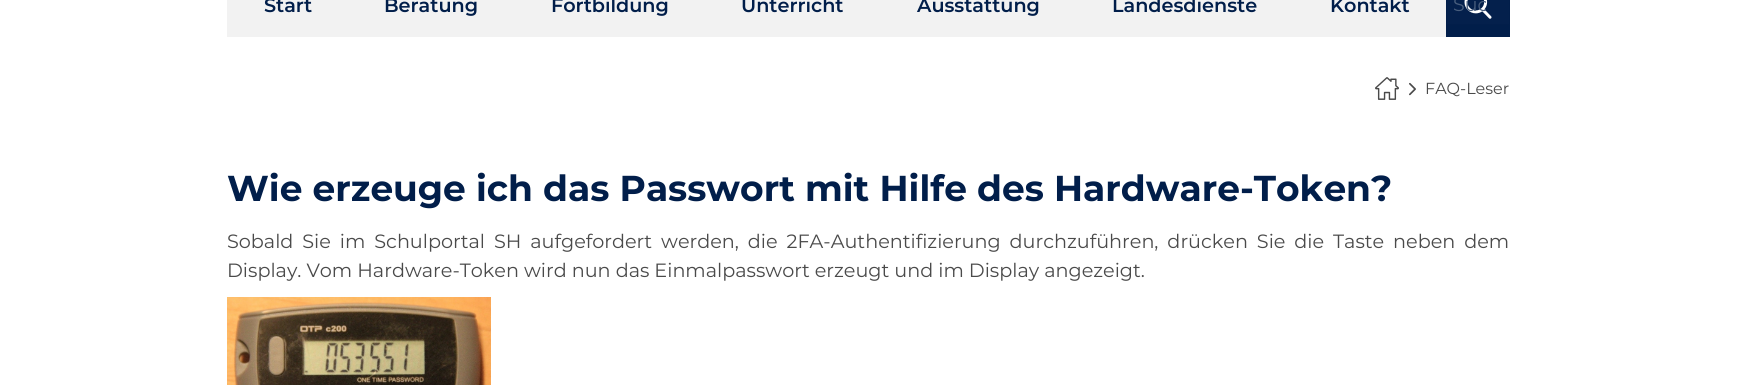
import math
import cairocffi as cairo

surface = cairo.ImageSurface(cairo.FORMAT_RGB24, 1737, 385)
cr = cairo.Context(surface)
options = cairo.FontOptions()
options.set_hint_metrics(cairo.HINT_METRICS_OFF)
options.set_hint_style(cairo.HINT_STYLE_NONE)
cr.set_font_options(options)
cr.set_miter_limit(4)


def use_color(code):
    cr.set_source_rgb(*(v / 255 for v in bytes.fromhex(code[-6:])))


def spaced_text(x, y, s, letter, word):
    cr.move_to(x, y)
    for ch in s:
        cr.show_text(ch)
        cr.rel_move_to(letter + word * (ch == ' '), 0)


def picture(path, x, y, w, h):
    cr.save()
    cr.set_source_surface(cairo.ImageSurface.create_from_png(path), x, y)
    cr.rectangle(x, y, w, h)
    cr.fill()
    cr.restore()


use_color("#ffffff")
cr.paint()
use_color("#f2f2f2")
cr.rectangle(227, 0, 1219, 37)
cr.fill()
cr.select_font_face("Montserrat SemiBold")
cr.set_font_size(19.2)
use_color("#011e4a")
cr.move_to(264, 12)
cr.show_text("Start")
cr.move_to(384, 12)
cr.show_text("Beratung")
cr.move_to(551, 12)
cr.show_text("Fortbildung")
cr.move_to(741, 12)
cr.show_text("Unterricht")
cr.move_to(917, 12)
cr.show_text("Ausstattung")
cr.move_to(1112, 12)
cr.show_text("Landesdienste")
cr.move_to(1330, 12)
cr.show_text("Kontakt")
cr.rectangle(1446, 25, 64, 12)
cr.fill()
use_color("#04204c")
cr.rectangle(1447, 0, 62, 24)
cr.fill()
picture("img1.png", 1464, 0, 28, 19)
cr.rectangle(1446.5, -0.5, 63, 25)
use_color("#021e4a")
cr.set_line_width(1)
cr.stroke()
cr.save()
cr.rectangle(1453, 0, 33, 16)
cr.clip()
cr.select_font_face("Montserrat")
cr.set_font_size(19)
use_color("#485d7c")
cr.move_to(1453, 11)
cr.show_text("Suc")
cr.restore()
picture("img2.png", 1375, 77, 24, 23)
picture("img3.png", 1409, 82, 7, 14)
cr.select_font_face("Montserrat")
cr.set_font_size(16)
use_color("#4a4a4a")
cr.move_to(1425, 94)
cr.show_text("FAQ-Leser")
cr.select_font_face("Montserrat", cairo.FONT_SLANT_NORMAL, cairo.FONT_WEIGHT_BOLD)
cr.set_font_size(36)
use_color("#011e4a")
cr.move_to(227, 201)
cr.show_text("Wie erzeuge ich das Passwort mit Hilfe des Hardware-Token?")
cr.select_font_face("Montserrat")
cr.set_font_size(19.2)
use_color("#4a4a4a")
spaced_text(227, 248, "Sobald Sie im Schulportal SH aufgefordert werden, die 2FA-Authentifizierung durchzuführen, drücken Sie die Taste neben dem", 0, 3.9)
cr.move_to(227, 277)
cr.show_text("Display. Vom Hardware-Token wird nun das Einmalpasswort erzeugt und im Display angezeigt.")
picture("img4.png", 227, 297, 264, 88)
surface.write_to_png("result.png")
